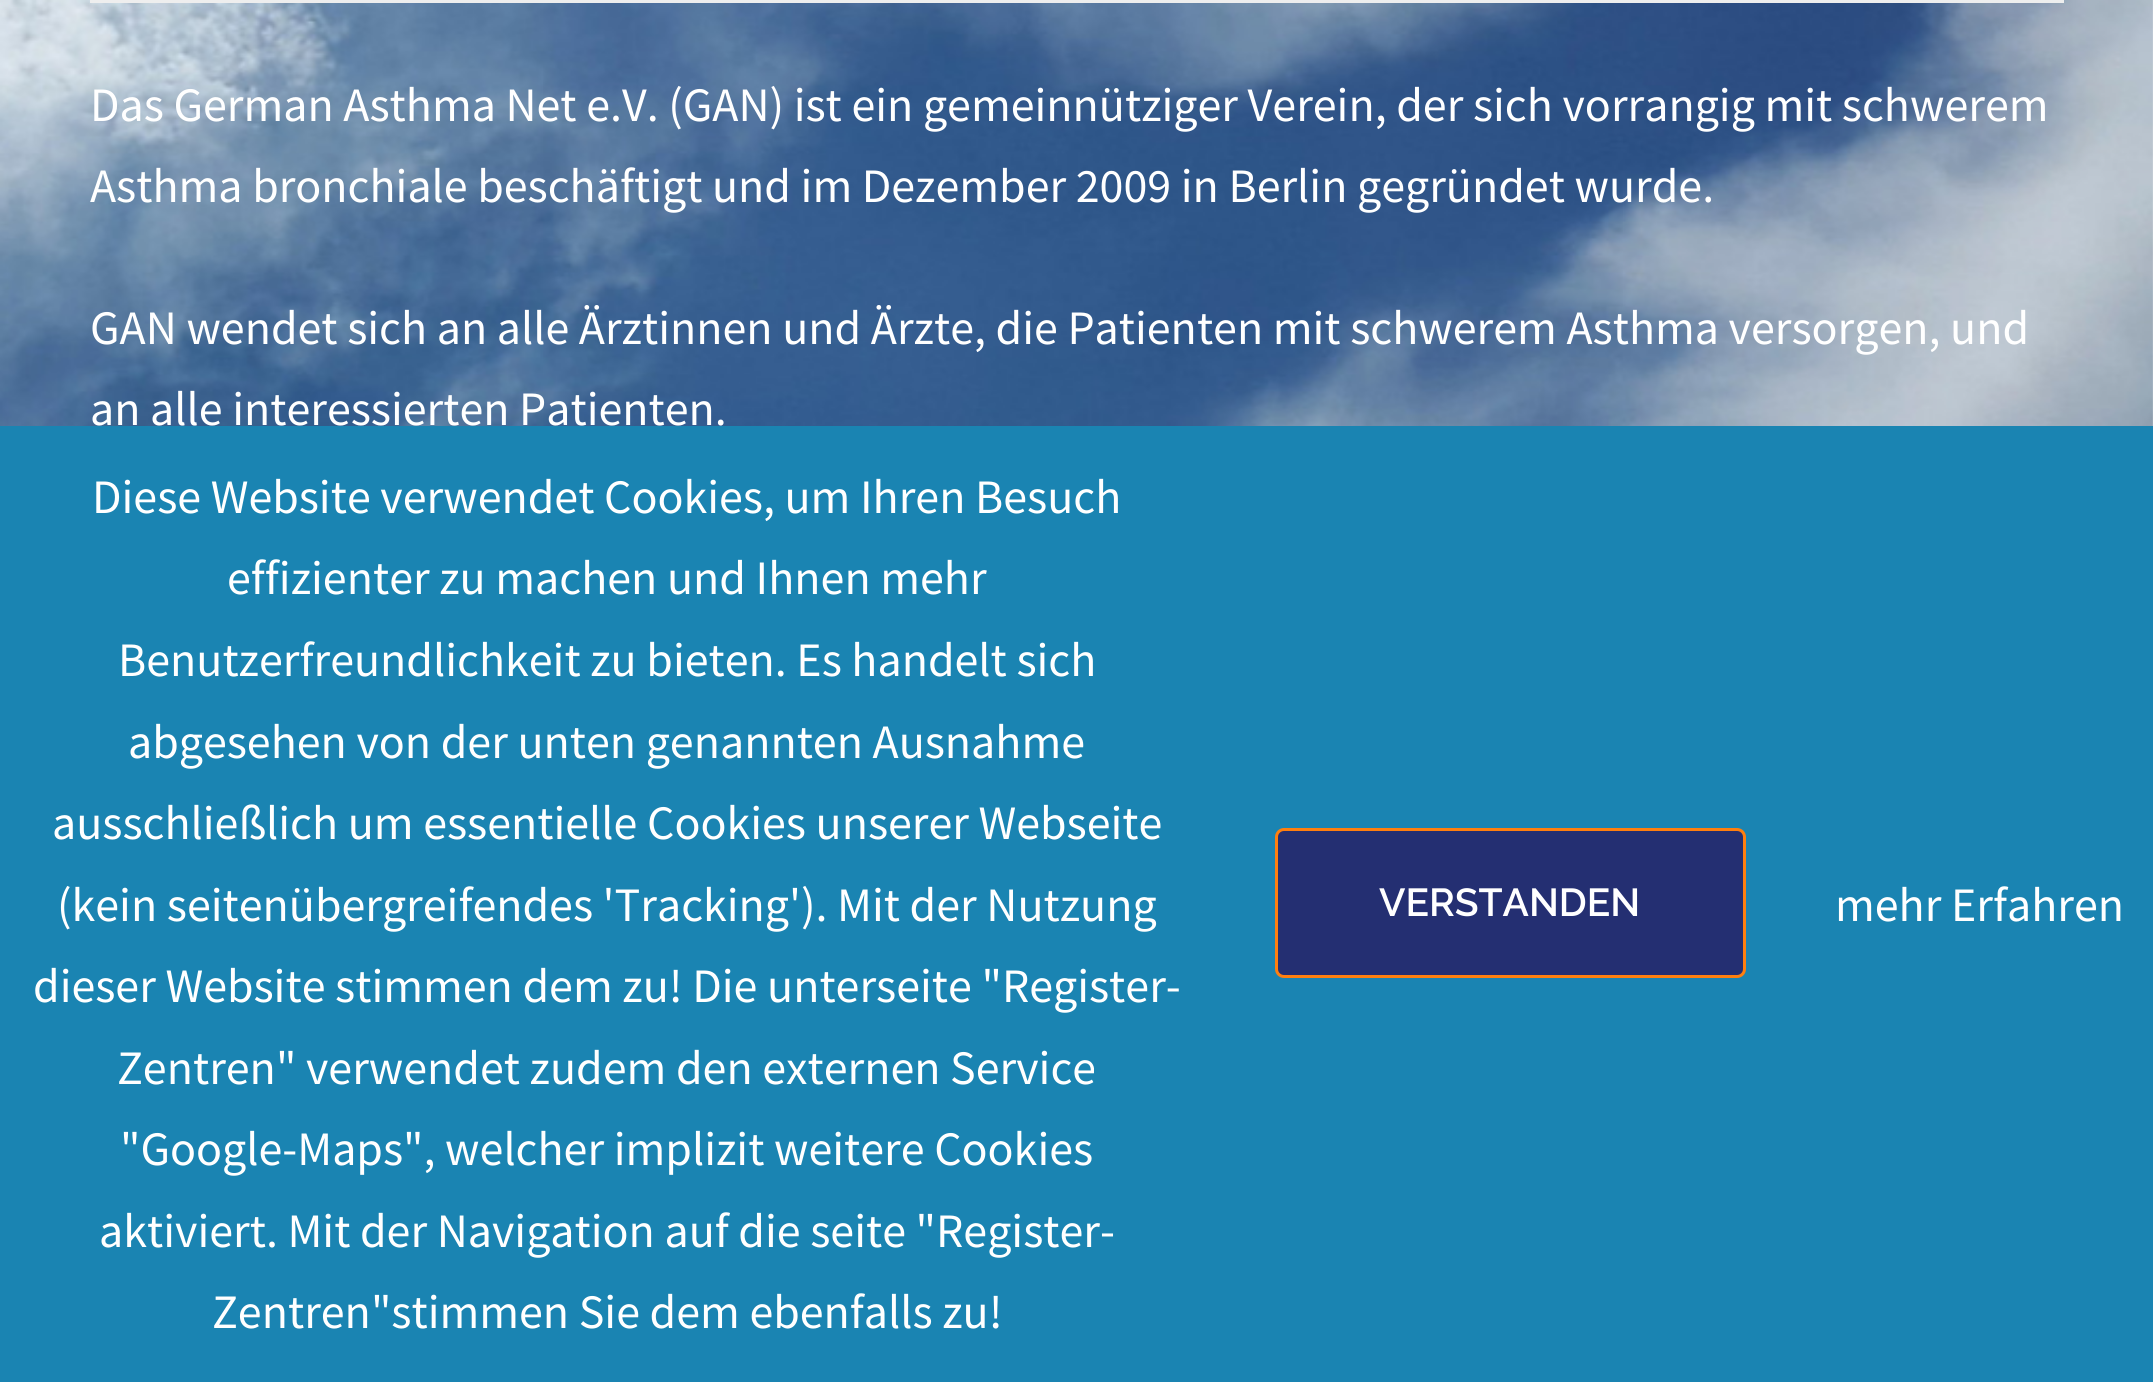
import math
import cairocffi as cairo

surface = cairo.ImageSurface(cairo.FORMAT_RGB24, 2153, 1382)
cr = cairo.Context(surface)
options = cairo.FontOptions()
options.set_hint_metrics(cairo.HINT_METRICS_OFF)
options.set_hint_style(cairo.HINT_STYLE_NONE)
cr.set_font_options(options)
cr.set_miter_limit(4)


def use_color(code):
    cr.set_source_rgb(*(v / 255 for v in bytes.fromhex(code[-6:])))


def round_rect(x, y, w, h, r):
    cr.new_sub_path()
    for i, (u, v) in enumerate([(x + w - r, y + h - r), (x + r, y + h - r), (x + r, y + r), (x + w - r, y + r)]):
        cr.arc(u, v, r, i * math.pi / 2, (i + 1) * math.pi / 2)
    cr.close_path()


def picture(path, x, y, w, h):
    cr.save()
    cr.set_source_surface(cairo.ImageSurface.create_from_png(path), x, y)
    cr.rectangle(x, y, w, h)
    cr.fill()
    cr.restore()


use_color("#ffffff")
cr.paint()
picture("img1.png", 0, 0, 2153, 426)
use_color("#eeeeee")
cr.rectangle(90, 0, 1974, 3)
cr.fill()
cr.select_font_face("Source Sans Pro")
cr.set_font_size(48)
use_color("#ffffff")
cr.move_to(90, 121)
cr.show_text("Das German Asthma Net e.V. (GAN) ist ein gemeinnütziger Verein, der sich vorrangig mit schwerem")
cr.move_to(90, 202)
cr.show_text("Asthma bronchiale beschäftigt und im Dezember 2009 in Berlin gegründet wurde.")
cr.move_to(90, 344)
cr.show_text("GAN wendet sich an alle Ärztinnen und Ärzte, die Patienten mit schwerem Asthma versorgen, und")
cr.move_to(90, 425)
cr.show_text("an alle interessierten Patienten.")
use_color("#1a84b2")
cr.rectangle(0, 426, 2153, 956)
cr.fill()
use_color("#ffffff")
cr.move_to(92, 513)
cr.show_text("Diese Website verwendet Cookies, um Ihren Besuch")
cr.move_to(227, 594)
cr.show_text("effizienter zu machen und Ihnen mehr")
cr.move_to(118, 676)
cr.show_text("Benutzerfreundlichkeit zu bieten. Es handelt sich")
cr.move_to(128, 758)
cr.show_text("abgesehen von der unten genannten Ausnahme")
cr.move_to(52, 839)
cr.show_text("ausschließlich um essentielle Cookies unserer Webseite")
cr.move_to(57, 921)
cr.show_text("(kein seitenübergreifendes 'Tracking'). Mit der Nutzung")
cr.move_to(33, 1002)
cr.show_text("dieser Website stimmen dem zu! Die unterseite \"Register-")
cr.move_to(117, 1084)
cr.show_text("Zentren\" verwendet zudem den externen Service")
cr.move_to(120, 1165)
cr.show_text("\"Google-Maps\", welcher implizit weitere Cookies")
cr.move_to(99, 1247)
cr.show_text("aktiviert. Mit der Navigation auf die seite \"Register-")
cr.move_to(212, 1328)
cr.show_text("Zentren\"stimmen Sie dem ebenfalls zu!")
use_color("#242f72")
round_rect(1276.5, 829.5, 468, 147, 7.5)
cr.fill_preserve()
use_color("#ff7f0f")
cr.set_line_width(3)
cr.stroke()
cr.select_font_face("Raleway SemiBold")
cr.set_font_size(39)
use_color("#ffffff")
cr.move_to(1379, 916)
cr.show_text("VERSTANDEN")
cr.select_font_face("Source Sans Pro")
cr.set_font_size(48)
cr.move_to(1835, 921)
cr.show_text("mehr Erfahren")
surface.write_to_png("result.png")
